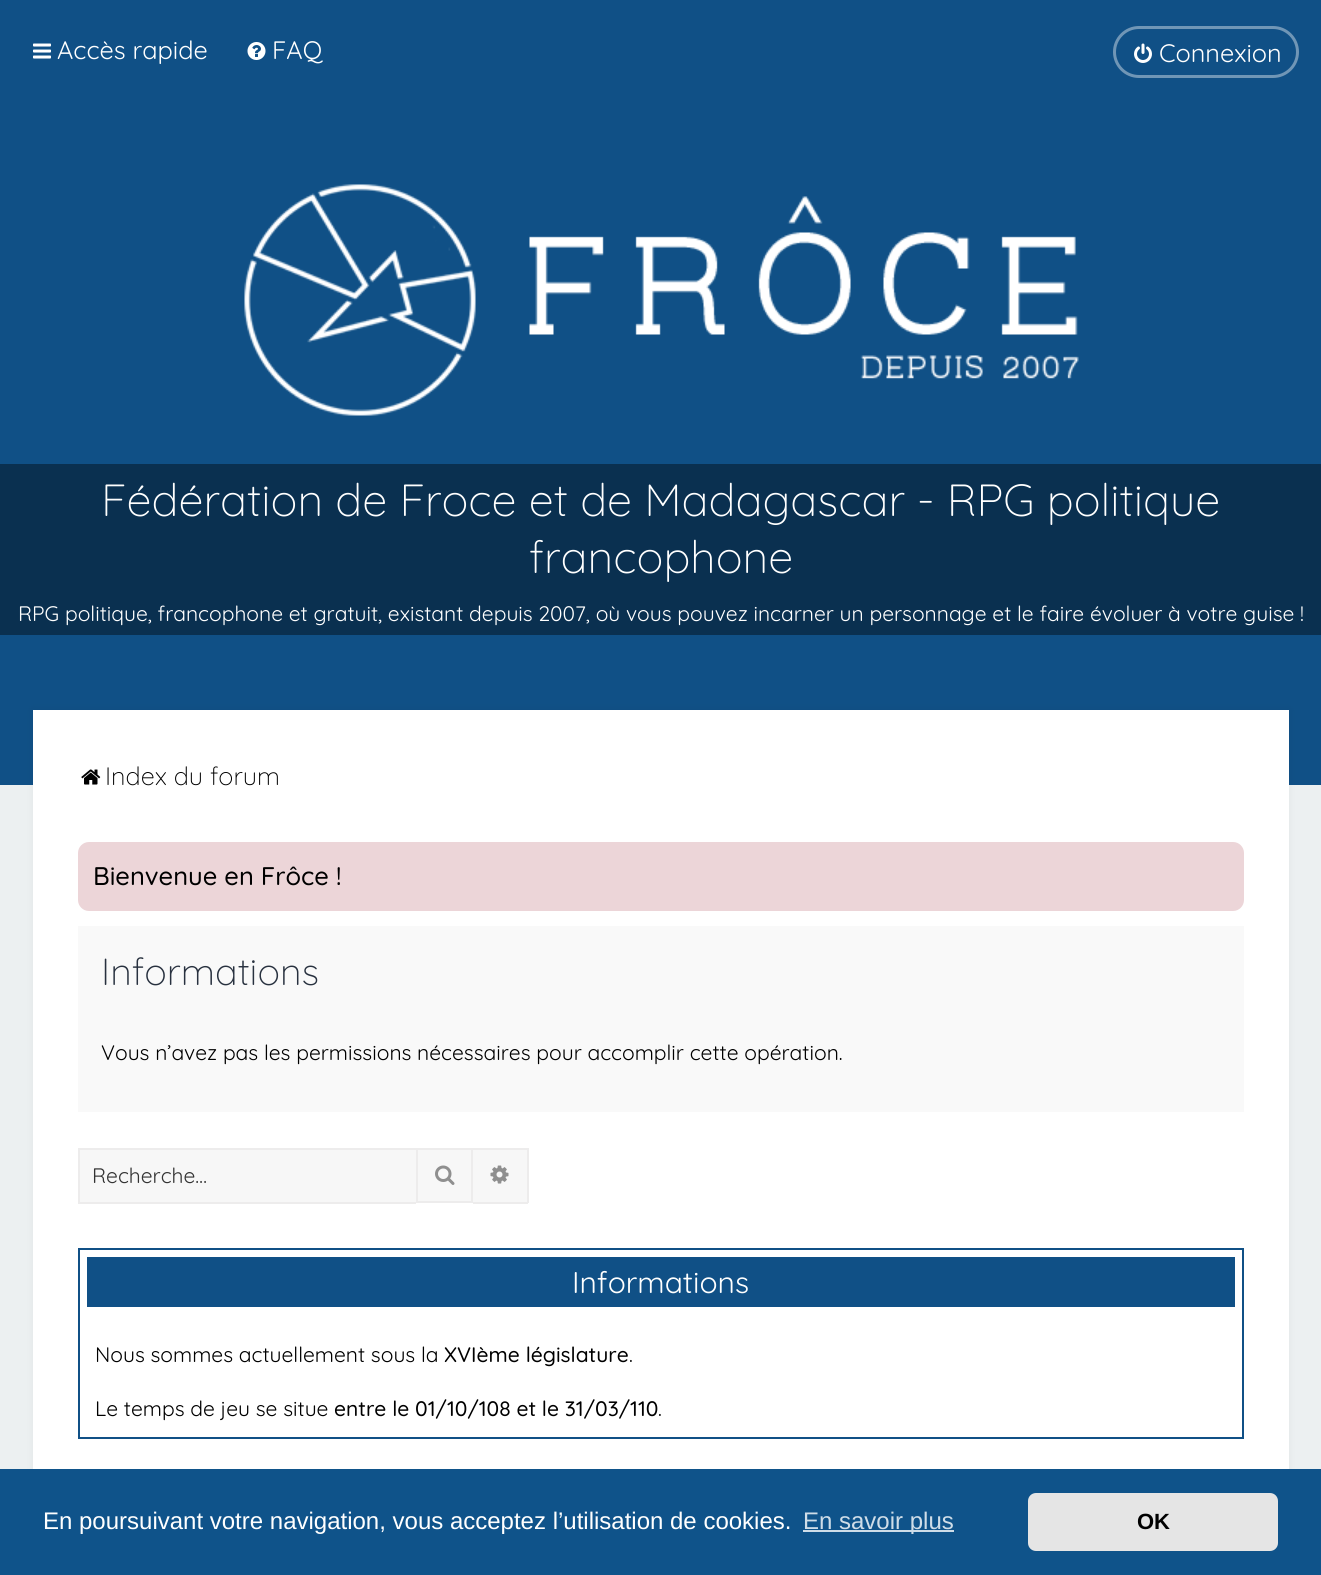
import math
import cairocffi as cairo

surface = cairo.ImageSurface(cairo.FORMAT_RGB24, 1321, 1575)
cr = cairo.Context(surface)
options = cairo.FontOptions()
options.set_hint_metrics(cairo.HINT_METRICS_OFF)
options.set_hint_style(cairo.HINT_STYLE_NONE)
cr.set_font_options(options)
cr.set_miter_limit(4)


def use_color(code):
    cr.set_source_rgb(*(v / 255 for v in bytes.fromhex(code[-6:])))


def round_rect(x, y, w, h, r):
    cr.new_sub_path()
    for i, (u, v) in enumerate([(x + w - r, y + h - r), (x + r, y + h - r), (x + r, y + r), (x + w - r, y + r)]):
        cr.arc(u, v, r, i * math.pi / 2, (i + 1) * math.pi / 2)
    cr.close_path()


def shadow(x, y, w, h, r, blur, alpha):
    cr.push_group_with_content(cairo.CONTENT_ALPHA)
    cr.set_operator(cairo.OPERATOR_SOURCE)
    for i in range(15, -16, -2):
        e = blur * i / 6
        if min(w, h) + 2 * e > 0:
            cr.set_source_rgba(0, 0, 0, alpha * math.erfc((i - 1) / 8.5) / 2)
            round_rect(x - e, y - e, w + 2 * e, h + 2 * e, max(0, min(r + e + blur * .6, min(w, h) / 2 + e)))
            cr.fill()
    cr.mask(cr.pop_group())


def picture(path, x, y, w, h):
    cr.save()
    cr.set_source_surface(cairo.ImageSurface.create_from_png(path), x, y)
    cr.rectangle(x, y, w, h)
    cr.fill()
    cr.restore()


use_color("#ecf0f1")
cr.paint()
use_color("#105086")
cr.rectangle(0, 0, 1321, 785)
cr.fill()
picture("img1.png", 33, 43, 18, 16)
cr.select_font_face("Quicksand")
cr.set_font_size(25.25)
use_color("#ffffff")
cr.move_to(57, 59)
cr.show_text("Accès rapide")
picture("img2.png", 247, 42, 19, 18)
cr.move_to(272, 59)
cr.show_text("FAQ")
round_rect(1114.5, 27.5, 183, 49, 24.5)
use_color("#7096b6")
cr.set_line_width(3)
cr.stroke()
picture("img3.png", 1134, 43, 18, 20)
use_color("#ffffff")
cr.move_to(1159, 62)
cr.show_text("Connexion")
picture("img4.png", 244, 184, 835, 232)
use_color("#0a3050")
cr.rectangle(0, 464, 1321, 171)
cr.fill()
cr.select_font_face("Quicksand Light")
cr.set_font_size(45)
use_color("#ffffff")
cr.move_to(101, 516)
cr.show_text("Fédération de Froce et de Madagascar - RPG politique")
cr.move_to(529, 573)
cr.show_text("francophone")
cr.select_font_face("Quicksand")
cr.set_font_size(21)
cr.move_to(18, 621)
cr.show_text("RPG politique, francophone et gratuit, existant depuis 2007, où vous pouvez incarner un personnage et le faire évoluer à votre guise !")
use_color("#000000")
shadow(33, 710, 1256, 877, 0, 4, 0.05)
use_color("#ffffff")
cr.rectangle(33, 710, 1256, 759)
cr.fill()
picture("img5.png", 81, 769, 20, 16)
cr.select_font_face("Quicksand Light")
cr.set_font_size(25.25)
use_color("#000000")
cr.move_to(105, 785)
cr.show_text("Index du forum")
use_color("#ecd5d8")
round_rect(78, 842, 1166, 69, 11)
cr.fill()
cr.select_font_face("Quicksand Medium")
cr.set_font_size(25.5)
use_color("#000000")
cr.move_to(93, 885)
cr.show_text("Bienvenue en Frôce !")
use_color("#f9f9f9")
cr.rectangle(78, 926, 1166, 186)
cr.fill()
cr.select_font_face("Quicksand Light")
cr.set_font_size(37.75)
use_color("#28313f")
cr.move_to(101, 985)
cr.show_text("Informations")
cr.select_font_face("Quicksand")
cr.set_font_size(21)
use_color("#000000")
cr.move_to(101, 1060)
cr.show_text("Vous n’avez pas les permissions nécessaires pour accomplir cette opération.")
use_color("#f7f7f7")
cr.rectangle(80, 1150, 336, 52)
cr.fill()
use_color("#edecec")
cr.rectangle(78, 1148, 338, 2)
cr.fill()
cr.rectangle(78, 1202, 338, 2)
cr.fill()
cr.rectangle(78, 1148, 2, 55)
cr.fill()
use_color("#333333")
cr.move_to(92, 1183)
cr.show_text("Recherche…")
use_color("#f7f7f7")
cr.rectangle(417, 1149, 55, 53)
cr.fill_preserve()
use_color("#edecec")
cr.set_line_width(2)
cr.stroke()
picture("img6.png", 435, 1165, 20, 20)
use_color("#f7f7f7")
cr.rectangle(473, 1150, 54, 52)
cr.fill()
use_color("#edecec")
cr.rectangle(473, 1148, 55, 2)
cr.fill()
cr.rectangle(527, 1148, 2, 55)
cr.fill()
cr.rectangle(473, 1202, 55, 2)
cr.fill()
picture("img7.png", 490, 1165, 19, 19)
cr.rectangle(79, 1249, 1164, 189)
use_color("#105086")
cr.stroke()
cr.rectangle(87, 1257, 1148, 50)
cr.fill()
cr.set_font_size(30)
use_color("#ffffff")
cr.move_to(572, 1293)
cr.show_text("Informations")
cr.set_font_size(21)
use_color("#000000")
cr.move_to(95, 1362)
cr.show_text("Nous sommes actuellement sous la")
cr.select_font_face("Quicksand Medium")
cr.move_to(444, 1362)
cr.show_text("XVIème législature")
cr.select_font_face("Quicksand")
cr.move_to(629, 1362)
cr.show_text(".")
cr.move_to(95, 1416)
cr.show_text("Le temps de jeu se situe")
cr.select_font_face("Quicksand Medium")
cr.move_to(334, 1416)
cr.show_text("entre le 01/10/108 et le 31/03/110")
cr.select_font_face("Quicksand")
cr.move_to(658, 1416)
cr.show_text(".")
use_color("#0f538a")
cr.rectangle(0, 1469, 1321, 106)
cr.fill()
cr.select_font_face("Liberation Sans")
cr.set_font_size(24)
use_color("#ffffff")
cr.move_to(43, 1529)
cr.show_text("En poursuivant votre navigation, vous acceptez l’utilisation de cookies.")
use_color("#cfdde8")
cr.rectangle(803, 1530, 151, 2)
cr.fill()
cr.move_to(803, 1529)
cr.show_text("En savoir plus")
use_color("#e5e5e5")
round_rect(1028, 1493, 250, 58, 8)
cr.fill()
cr.select_font_face("Liberation Sans", cairo.FONT_SLANT_NORMAL, cairo.FONT_WEIGHT_BOLD)
cr.set_font_size(22)
use_color("#000000")
cr.move_to(1137, 1529)
cr.show_text("OK")
surface.write_to_png("result.png")
